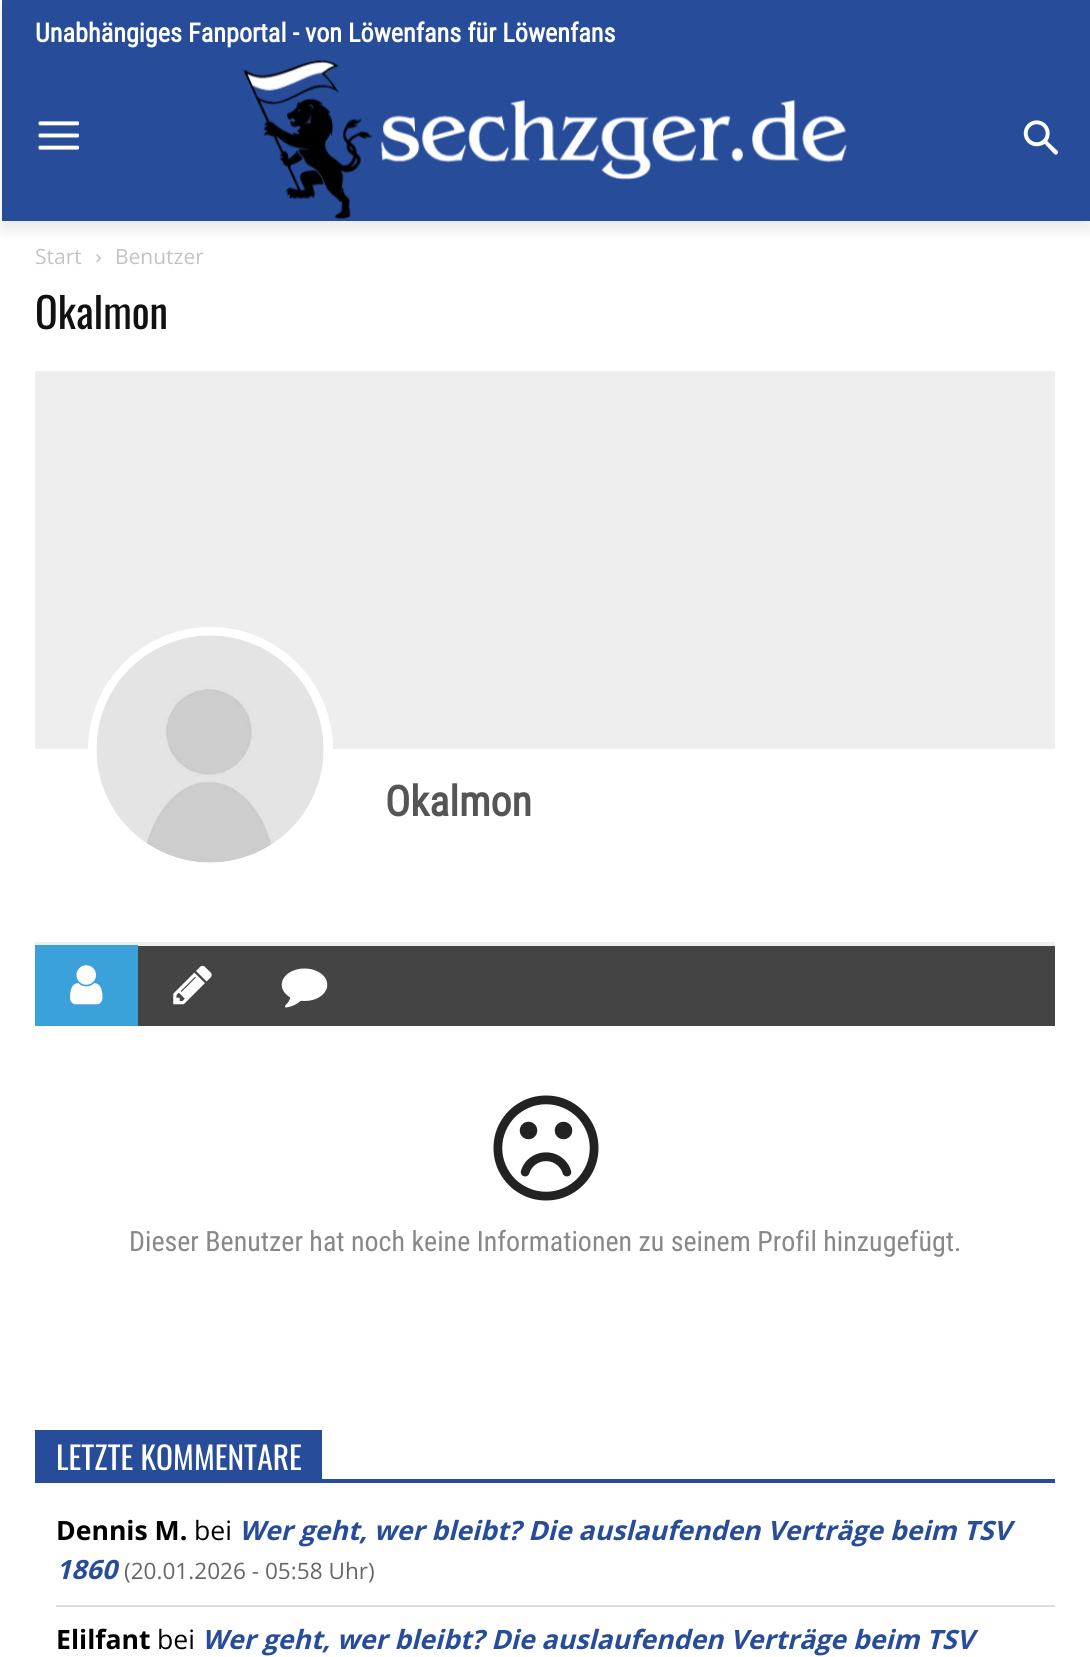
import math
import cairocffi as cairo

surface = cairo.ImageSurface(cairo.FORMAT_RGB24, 1090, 1657)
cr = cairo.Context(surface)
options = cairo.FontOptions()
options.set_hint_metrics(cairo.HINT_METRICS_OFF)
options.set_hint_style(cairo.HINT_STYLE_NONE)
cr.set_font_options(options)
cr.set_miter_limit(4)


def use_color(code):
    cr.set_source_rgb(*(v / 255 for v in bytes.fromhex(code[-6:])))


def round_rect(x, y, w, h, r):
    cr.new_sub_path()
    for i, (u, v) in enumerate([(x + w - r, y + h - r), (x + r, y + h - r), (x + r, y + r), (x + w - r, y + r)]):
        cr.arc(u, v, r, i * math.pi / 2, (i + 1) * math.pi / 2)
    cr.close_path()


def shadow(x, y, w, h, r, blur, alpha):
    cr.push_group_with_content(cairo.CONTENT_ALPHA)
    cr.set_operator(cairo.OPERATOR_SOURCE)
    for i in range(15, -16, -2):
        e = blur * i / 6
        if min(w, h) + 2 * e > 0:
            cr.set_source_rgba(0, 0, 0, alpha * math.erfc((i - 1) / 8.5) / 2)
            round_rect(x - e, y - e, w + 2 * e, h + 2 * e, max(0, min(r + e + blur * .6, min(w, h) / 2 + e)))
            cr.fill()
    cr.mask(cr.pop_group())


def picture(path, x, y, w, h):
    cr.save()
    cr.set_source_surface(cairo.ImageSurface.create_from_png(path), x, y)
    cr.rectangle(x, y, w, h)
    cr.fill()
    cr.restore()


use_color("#ffffff")
cr.paint()
use_color("#264c9a")
cr.rectangle(2, 0, 1088, 221)
cr.fill()
picture("img1.png", 38, 121, 41, 29)
picture("img2.png", 243, 60, 604, 159)
picture("img3.png", 1023, 120, 36, 35)
cr.save()
cr.set_fill_rule(cairo.FILL_RULE_EVEN_ODD)
cr.new_path()
cr.move_to(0, 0)
cr.line_to(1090, 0)
cr.line_to(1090, 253)
cr.line_to(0, 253)
cr.close_path()
cr.move_to(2, 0)
cr.line_to(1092, 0)
cr.line_to(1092, 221)
cr.line_to(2, 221)
cr.close_path()
cr.clip()
use_color("#000000")
shadow(2, 11, 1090, 220, 0, 7, 0.08)
cr.restore()
cr.select_font_face("Roboto Condensed", cairo.FONT_SLANT_NORMAL, cairo.FONT_WEIGHT_BOLD)
cr.set_font_size(26.25)
use_color("#ffffff")
cr.move_to(35, 42)
cr.show_text("Unabhängiges Fanportal - von Löwenfans für Löwenfans")
cr.select_font_face("Open Sans")
cr.set_font_size(21)
use_color("#c3c3c3")
cr.move_to(35, 264)
cr.show_text("Start")
picture("img4.png", 96, 254, 5, 9)
cr.move_to(115, 264)
cr.show_text("Benutzer")
cr.select_font_face("Oswald")
cr.set_font_size(42)
use_color("#111111")
cr.move_to(35, 329)
cr.show_text("Okalmon")
use_color("#eeeeee")
cr.rectangle(35, 371, 1020, 378)
cr.fill()
cr.rectangle(35, 942, 1020, 4)
cr.fill()
use_color("#ffffff")
cr.arc(210.5, 749.5, 118, 0, 2 * math.pi)
cr.fill_preserve()
cr.set_line_width(9)
cr.stroke()
picture("img5.png", 96, 635, 228, 228)
cr.select_font_face("Roboto Condensed", cairo.FONT_SLANT_NORMAL, cairo.FONT_WEIGHT_BOLD)
use_color("#555555")
cr.move_to(385, 816)
cr.show_text("Okalmon")
use_color("#444444")
cr.rectangle(138, 946, 917, 80)
cr.fill()
use_color("#3ba1da")
cr.rectangle(35, 945, 103, 81)
cr.fill()
picture("img6.png", 70, 965, 33, 40)
picture("img7.png", 173, 965, 39, 40)
picture("img8.png", 281, 968, 47, 40)
picture("img9.png", 493, 1095, 106, 106)
cr.select_font_face("Roboto Condensed")
cr.set_font_size(28)
use_color("#888888")
cr.move_to(129, 1251)
cr.show_text("Dieser Benutzer hat noch keine Informationen zu seinem Profil hinzugefügt.")
use_color("#264c9a")
cr.rectangle(35, 1479, 1020, 4)
cr.fill()
cr.rectangle(35, 1430, 287, 49)
cr.fill()
cr.select_font_face("Oswald")
cr.set_font_size(31.5)
use_color("#ffffff")
cr.move_to(56, 1470)
cr.show_text("LETZTE KOMMENTARE")
use_color("#dddddd")
cr.rectangle(56, 1605, 999, 2)
cr.fill()
cr.select_font_face("Open Sans", cairo.FONT_SLANT_NORMAL, cairo.FONT_WEIGHT_BOLD)
cr.set_font_size(26.6)
use_color("#000000")
cr.move_to(56, 1540)
cr.show_text("Dennis M.")
cr.select_font_face("Open Sans")
cr.move_to(194, 1540)
cr.show_text("bei")
cr.select_font_face("Open Sans", cairo.FONT_SLANT_ITALIC, cairo.FONT_WEIGHT_BOLD)
use_color("#264c9a")
cr.move_to(239, 1540)
cr.show_text("Wer geht, wer bleibt? Die auslaufenden Verträge beim TSV")
cr.move_to(56, 1579)
cr.show_text("1860")
cr.select_font_face("Open Sans")
cr.set_font_size(22.6)
use_color("#666666")
cr.move_to(124, 1579)
cr.show_text("(20.01.2026 - 05:58 Uhr)")
cr.select_font_face("Open Sans", cairo.FONT_SLANT_NORMAL, cairo.FONT_WEIGHT_BOLD)
cr.set_font_size(26.6)
use_color("#000000")
cr.move_to(56, 1649)
cr.show_text("Elilfant")
cr.select_font_face("Open Sans")
cr.move_to(157, 1649)
cr.show_text("bei")
cr.select_font_face("Open Sans", cairo.FONT_SLANT_ITALIC, cairo.FONT_WEIGHT_BOLD)
use_color("#264c9a")
cr.move_to(202, 1649)
cr.show_text("Wer geht, wer bleibt? Die auslaufenden Verträge beim TSV")
surface.write_to_png("result.png")
